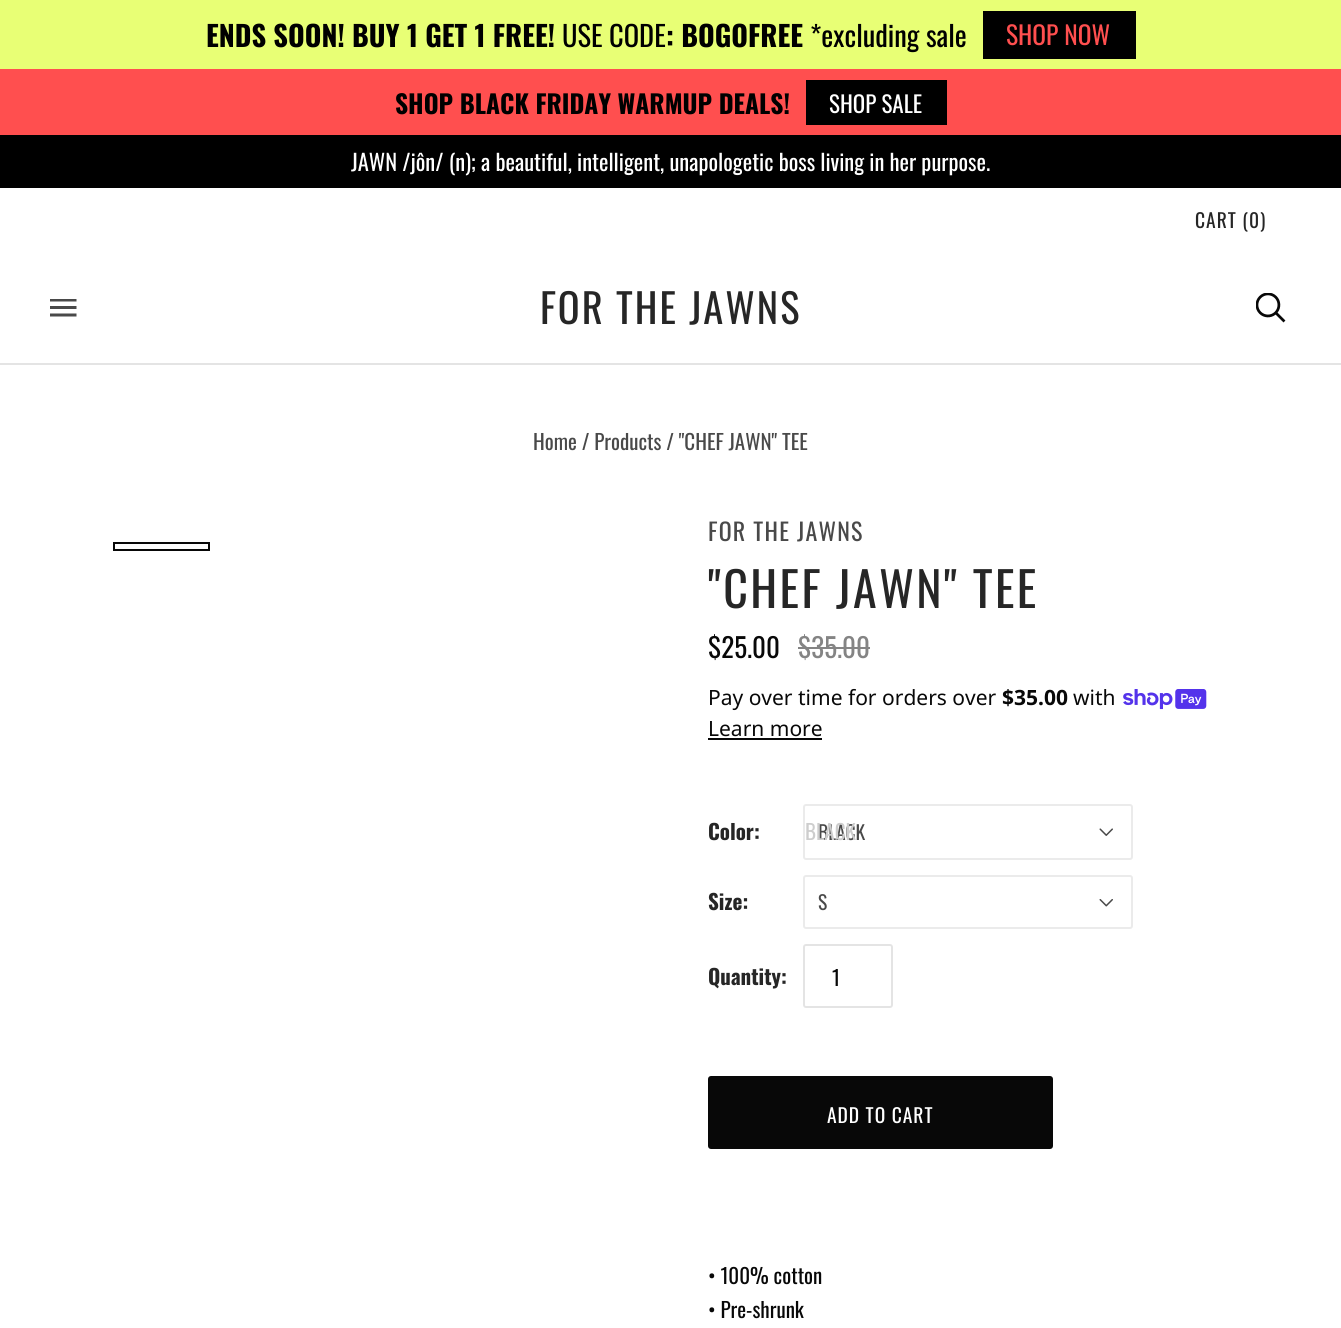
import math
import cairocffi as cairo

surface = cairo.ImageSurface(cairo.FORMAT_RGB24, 1341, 1328)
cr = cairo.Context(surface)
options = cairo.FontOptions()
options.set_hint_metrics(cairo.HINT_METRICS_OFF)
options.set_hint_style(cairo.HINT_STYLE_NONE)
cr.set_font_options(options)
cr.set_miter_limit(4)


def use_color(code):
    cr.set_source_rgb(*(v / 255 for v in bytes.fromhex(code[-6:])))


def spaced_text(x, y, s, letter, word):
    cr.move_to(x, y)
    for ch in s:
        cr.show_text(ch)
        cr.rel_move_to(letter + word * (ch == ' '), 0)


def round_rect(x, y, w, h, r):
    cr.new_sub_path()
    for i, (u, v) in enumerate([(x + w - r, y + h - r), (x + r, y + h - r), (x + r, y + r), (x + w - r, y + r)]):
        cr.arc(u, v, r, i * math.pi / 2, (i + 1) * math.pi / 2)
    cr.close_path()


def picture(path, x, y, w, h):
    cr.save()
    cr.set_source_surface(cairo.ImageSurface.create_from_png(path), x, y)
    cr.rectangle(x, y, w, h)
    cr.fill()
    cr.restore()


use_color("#ffffff")
cr.paint()
use_color("#e8ff75")
cr.rectangle(0, 0, 1341, 69)
cr.fill()
cr.select_font_face("Oswald", cairo.FONT_SLANT_NORMAL, cairo.FONT_WEIGHT_BOLD)
cr.set_font_size(28.5)
use_color("#000000")
cr.move_to(206, 47)
cr.show_text("ENDS SOON! BUY 1 GET 1 FREE!")
cr.select_font_face("Oswald")
cr.move_to(562, 47)
cr.show_text("USE CODE")
cr.select_font_face("Oswald", cairo.FONT_SLANT_NORMAL, cairo.FONT_WEIGHT_BOLD)
cr.move_to(666, 47)
cr.show_text(": BOGOFREE")
cr.select_font_face("Oswald")
cr.move_to(810, 47)
cr.show_text("*excluding sale")
cr.rectangle(983, 11, 153, 48)
cr.fill()
cr.set_font_size(25.5)
use_color("#ff4f4f")
cr.move_to(1006, 45)
cr.show_text("SHOP NOW")
cr.rectangle(0, 69, 1341, 66)
cr.fill()
cr.select_font_face("Oswald", cairo.FONT_SLANT_NORMAL, cairo.FONT_WEIGHT_BOLD)
use_color("#000000")
cr.move_to(395, 114)
cr.show_text("SHOP BLACK FRIDAY WARMUP DEALS!")
cr.rectangle(806, 80, 141, 45)
cr.fill()
cr.select_font_face("Oswald")
cr.set_font_size(23)
use_color("#ffffff")
cr.move_to(829, 113)
cr.show_text("SHOP SALE")
use_color("#000000")
cr.rectangle(0, 135, 1341, 53)
cr.fill()
cr.set_font_size(22.5)
use_color("#ffffff")
cr.move_to(351, 171)
cr.show_text("JAWN /jôn/ (n); a beautiful, intelligent, unapologetic boss living in her purpose.")
use_color("#e4e4e4")
cr.rectangle(0, 363, 1341, 2)
cr.fill()
cr.set_font_size(19.5)
use_color("#262626")
spaced_text(1195, 228, "CART (0)", 1, 0)
picture("img1.png", 50, 299, 27, 18)
cr.set_font_size(40.5)
spaced_text(540, 324, "FOR THE JAWNS", 2, 0)
picture("img2.png", 1256, 293, 30, 30)
cr.set_font_size(21)
use_color("#494949")
cr.move_to(533, 450)
cr.show_text("Home / Products / \"CHEF JAWN\" TEE")
cr.rectangle(114, 543, 95, 7)
use_color("#080808")
cr.stroke()
cr.set_font_size(24)
use_color("#494949")
spaced_text(708, 541, "FOR THE JAWNS", 1.25, 0)
cr.set_font_size(48)
use_color("#262626")
spaced_text(708, 608, "\"CHEF JAWN\" TEE", 2.4, 0)
cr.set_font_size(27)
use_color("#080808")
cr.move_to(708, 658)
cr.show_text("$25.00")
use_color("#848484")
cr.move_to(798, 658)
cr.show_text("$35.00")
cr.rectangle(798, 647, 72, 2)
cr.fill()
cr.select_font_face("Noto Sans")
cr.set_font_size(21)
use_color("#080808")
cr.move_to(708, 705)
cr.show_text("Pay over time for orders over")
cr.select_font_face("Noto Sans", cairo.FONT_SLANT_NORMAL, cairo.FONT_WEIGHT_BOLD)
cr.move_to(1002, 705)
cr.show_text("$35.00")
cr.select_font_face("Noto Sans")
cr.move_to(1073, 705)
cr.show_text("with")
picture("img3.png", 1123, 689, 84, 21)
cr.move_to(708, 736)
cr.show_text("Learn more")
cr.rectangle(708, 738, 114, 2)
cr.fill()
cr.select_font_face("Oswald", cairo.FONT_SLANT_NORMAL, cairo.FONT_WEIGHT_BOLD)
use_color("#262626")
cr.move_to(708, 840)
cr.show_text("Color:")
round_rect(804, 805, 328, 54, 2)
use_color("#ebebeb")
cr.stroke()
cr.select_font_face("Oswald")
cr.set_font_size(19.5)
use_color("#494949")
cr.move_to(818, 840)
cr.show_text("BLACK")
cr.set_font_size(21)
use_color("#cdcdcd")
cr.move_to(805, 840)
cr.show_text("BLACK")
picture("img4.png", 1099, 828, 14, 8)
cr.select_font_face("Oswald", cairo.FONT_SLANT_NORMAL, cairo.FONT_WEIGHT_BOLD)
use_color("#262626")
cr.move_to(708, 910)
cr.show_text("Size:")
round_rect(804, 876, 328, 52, 2)
use_color("#ebebeb")
cr.stroke()
cr.select_font_face("Oswald")
cr.set_font_size(19.5)
use_color("#494949")
cr.move_to(818, 910)
cr.show_text("S")
picture("img5.png", 1099, 899, 14, 8)
cr.select_font_face("Oswald", cairo.FONT_SLANT_NORMAL, cairo.FONT_WEIGHT_BOLD)
cr.set_font_size(21)
use_color("#262626")
cr.move_to(708, 985)
cr.show_text("Quantity:")
round_rect(804, 945, 88, 62, 2)
use_color("#e4e4e4")
cr.stroke()
cr.select_font_face("Oswald")
use_color("#080808")
cr.move_to(832, 986)
cr.show_text("1")
round_rect(708, 1076, 345, 73, 3)
cr.fill()
cr.set_font_size(19.5)
use_color("#ffffff")
spaced_text(827, 1123, "ADD TO CART", 1, 0)
cr.set_font_size(21)
use_color("#080808")
cr.move_to(708, 1284)
cr.show_text("• 100% cotton")
cr.move_to(708, 1318)
cr.show_text("• Pre-shrunk")
surface.write_to_png("result.png")
